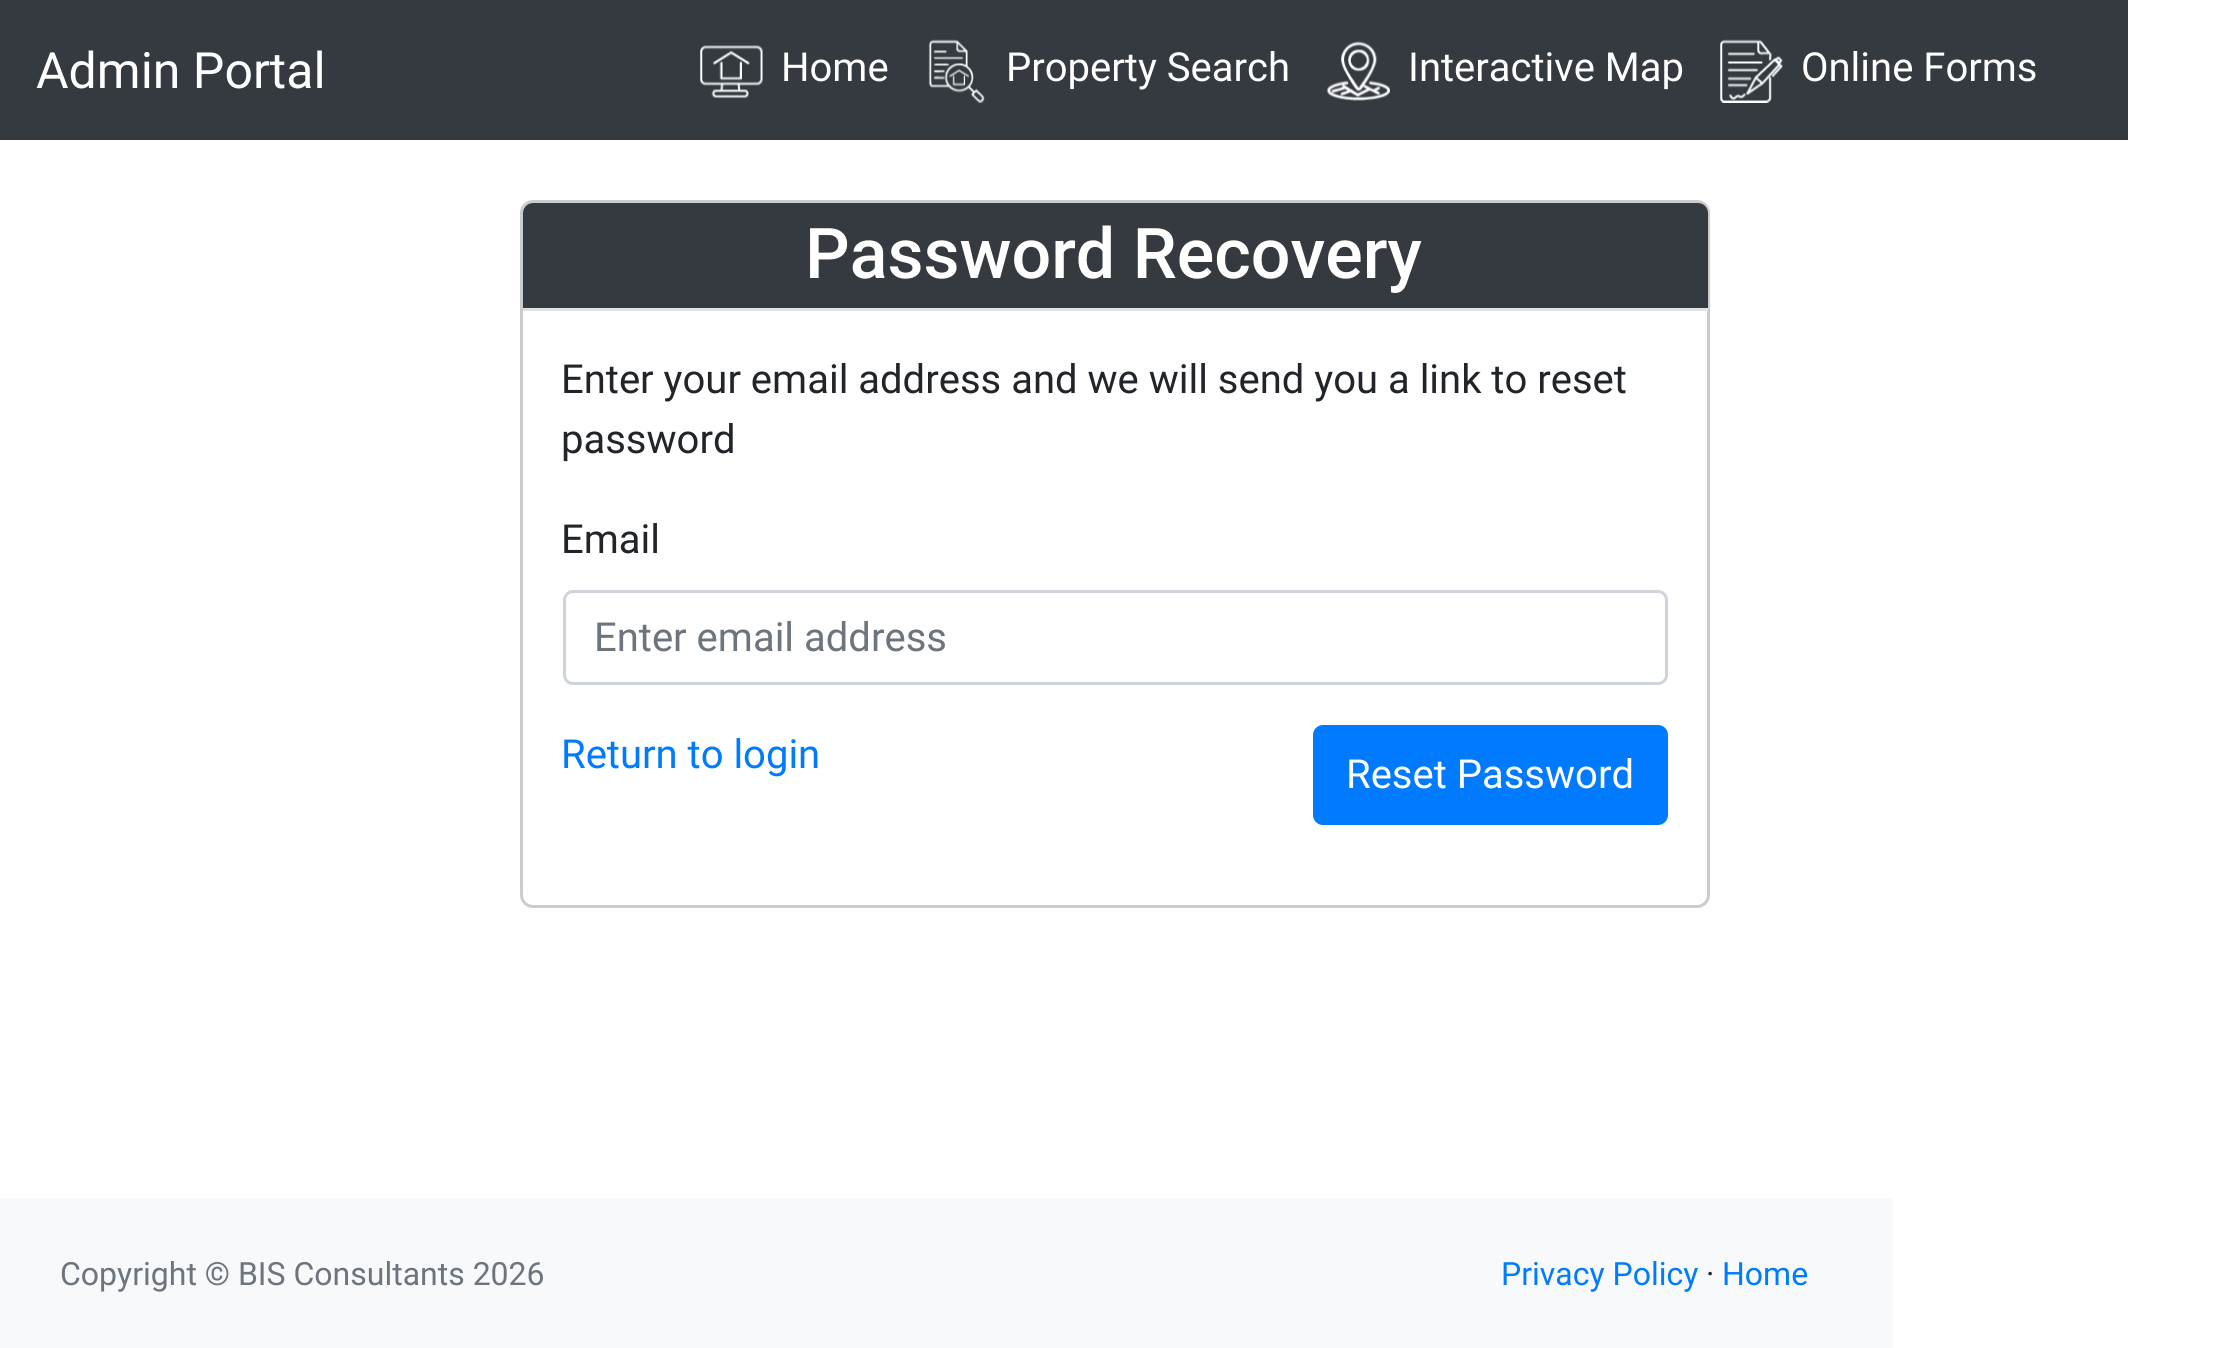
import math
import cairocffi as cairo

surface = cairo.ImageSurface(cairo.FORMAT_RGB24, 2226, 1348)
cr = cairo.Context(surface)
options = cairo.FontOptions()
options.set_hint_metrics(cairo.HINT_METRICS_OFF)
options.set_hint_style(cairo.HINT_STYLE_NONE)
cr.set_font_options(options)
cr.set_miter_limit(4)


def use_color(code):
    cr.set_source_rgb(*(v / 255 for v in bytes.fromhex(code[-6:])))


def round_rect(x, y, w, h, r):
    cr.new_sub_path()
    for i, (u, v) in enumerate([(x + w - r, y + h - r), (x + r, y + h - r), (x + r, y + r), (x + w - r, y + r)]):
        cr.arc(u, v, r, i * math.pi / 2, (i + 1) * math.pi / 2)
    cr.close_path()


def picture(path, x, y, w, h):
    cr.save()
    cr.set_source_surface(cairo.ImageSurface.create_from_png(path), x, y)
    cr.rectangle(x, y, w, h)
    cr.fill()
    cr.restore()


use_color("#ffffff")
cr.paint()
use_color("#343a40")
cr.rectangle(0, 0, 2128, 140)
cr.fill()
cr.select_font_face("Roboto")
cr.set_font_size(50)
use_color("#ffffff")
cr.move_to(36, 88)
cr.show_text("Admin Portal")
picture("img1.png", 700, 45, 63, 54)
cr.set_font_size(40)
cr.move_to(781, 81)
cr.show_text("Home")
picture("img2.png", 928, 39, 57, 64)
cr.move_to(1006, 81)
cr.show_text("Property Search")
picture("img3.png", 1327, 41, 63, 60)
cr.move_to(1408, 81)
cr.show_text("Interactive Map")
picture("img4.png", 1720, 39, 63, 64)
cr.move_to(1801, 81)
cr.show_text("Online Forms")
round_rect(521.5, 201.5, 1187, 705, 11.5)
use_color("#cccccc")
cr.set_line_width(3)
cr.stroke()
use_color("#343a40")
cr.new_path()
cr.move_to(533, 203)
cr.line_to(1698, 203)
cr.curve_to(1703.5, 203, 1708, 207.5, 1708, 213)
cr.line_to(1708, 310)
cr.line_to(523, 310)
cr.line_to(523, 213)
cr.curve_to(523, 207.5, 527.5, 203, 533, 203)
cr.close_path()
cr.fill()
use_color("#dee2e6")
cr.rectangle(523, 308, 1185, 3)
cr.fill()
cr.select_font_face("Roboto Medium")
cr.set_font_size(70)
use_color("#ffffff")
cr.move_to(805, 278)
cr.show_text("Password Recovery")
cr.select_font_face("Roboto")
cr.set_font_size(40)
use_color("#212529")
cr.move_to(561, 393)
cr.show_text("Enter your email address and we will send you a link to reset")
cr.move_to(561, 453)
cr.show_text("password")
cr.move_to(561, 553)
cr.show_text("Email")
round_rect(564.5, 591.5, 1102, 92, 8.5)
use_color("#ced4da")
cr.stroke()
use_color("#6c757d")
cr.move_to(594, 651)
cr.show_text("Enter email address")
use_color("#007bff")
cr.move_to(561, 768)
cr.show_text("Return to login")
round_rect(1314.5, 726.5, 352, 97, 8.5)
cr.fill_preserve()
cr.stroke()
use_color("#ffffff")
cr.move_to(1346, 788)
cr.show_text("Reset Password")
use_color("#f8f9fa")
cr.rectangle(0, 1198, 1893, 150)
cr.fill()
cr.set_font_size(32)
use_color("#6c757d")
cr.move_to(60, 1285)
cr.show_text("Copyright © BIS Consultants 2026")
use_color("#007bff")
cr.move_to(1501, 1285)
cr.show_text("Privacy Policy")
use_color("#212529")
cr.move_to(1706, 1285)
cr.show_text("·")
use_color("#007bff")
cr.move_to(1722, 1285)
cr.show_text("Home")
surface.write_to_png("result.png")
